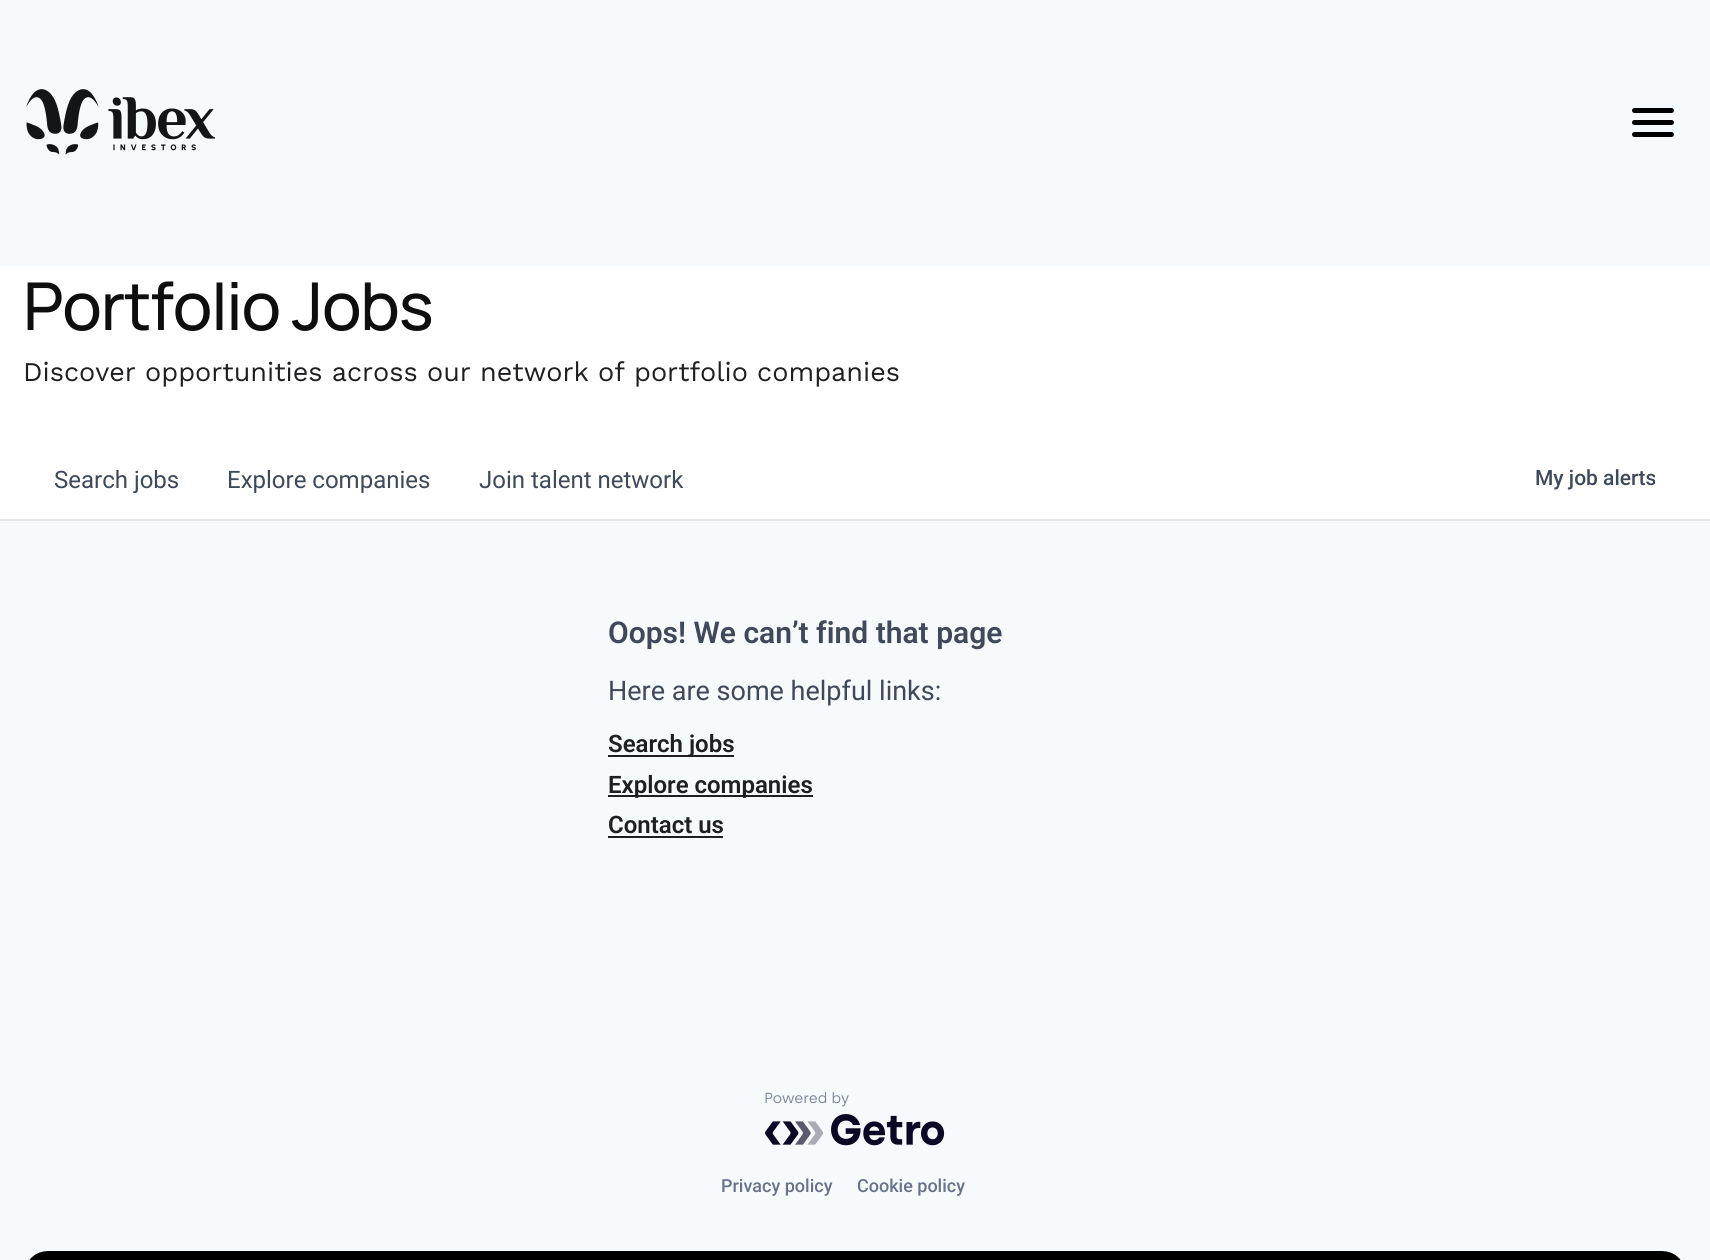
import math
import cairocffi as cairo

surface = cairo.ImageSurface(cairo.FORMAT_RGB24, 1710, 1260)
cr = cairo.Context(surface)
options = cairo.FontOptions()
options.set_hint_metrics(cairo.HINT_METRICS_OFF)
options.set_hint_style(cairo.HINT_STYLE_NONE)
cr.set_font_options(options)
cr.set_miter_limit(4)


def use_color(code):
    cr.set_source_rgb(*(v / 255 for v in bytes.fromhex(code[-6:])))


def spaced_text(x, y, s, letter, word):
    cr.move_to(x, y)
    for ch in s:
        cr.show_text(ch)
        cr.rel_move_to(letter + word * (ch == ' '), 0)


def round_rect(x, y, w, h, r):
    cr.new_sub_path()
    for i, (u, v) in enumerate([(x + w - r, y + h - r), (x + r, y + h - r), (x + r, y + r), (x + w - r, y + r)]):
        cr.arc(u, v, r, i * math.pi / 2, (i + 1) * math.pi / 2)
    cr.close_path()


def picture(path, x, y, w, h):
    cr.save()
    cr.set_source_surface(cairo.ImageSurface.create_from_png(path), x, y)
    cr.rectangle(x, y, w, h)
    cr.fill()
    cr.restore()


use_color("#f7fafc")
cr.paint()
picture("img1.png", 26, 89, 189, 66)
use_color("#000000")
round_rect(1632, 108, 42, 5, 2.5)
cr.fill()
round_rect(1632, 120, 42, 5, 2.5)
cr.fill()
round_rect(1632, 132, 42, 5, 2.5)
cr.fill()
use_color("#ffffff")
cr.rectangle(0, 266, 1710, 253)
cr.fill()
cr.select_font_face("Manrope Medium")
cr.set_font_size(66)
use_color("#0e0e0e")
spaced_text(23, 330, "Portfolio Jobs", -1.25, 0)
cr.select_font_face("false")
cr.set_font_size(27)
use_color("#1f1f22")
cr.move_to(23, 381)
cr.show_text("Discover opportunities across our network of portfolio companies")
use_color("#e5e5e5")
cr.rectangle(0, 519, 1710, 2)
cr.fill()
cr.select_font_face("Roboto")
cr.set_font_size(24)
use_color("#3f495a")
cr.move_to(54, 488)
cr.show_text("Search jobs")
cr.move_to(227, 488)
cr.show_text("Explore companies")
cr.move_to(479, 488)
cr.show_text("Join talent network")
cr.select_font_face("Roboto Medium")
cr.set_font_size(21)
cr.move_to(1535, 485)
cr.show_text("My job alerts")
cr.select_font_face("Roboto SemiBold")
cr.set_font_size(30)
cr.move_to(608, 643)
cr.show_text("Oops! We can’t find that page")
cr.select_font_face("Roboto")
cr.set_font_size(27)
cr.move_to(608, 700)
cr.show_text("Here are some helpful links:")
use_color("#1f1f22")
cr.rectangle(608, 755, 126, 2)
cr.fill()
cr.select_font_face("Roboto SemiBold")
cr.set_font_size(24)
cr.move_to(608, 752)
cr.show_text("Search jobs")
cr.rectangle(608, 795, 205, 2)
cr.fill()
cr.move_to(608, 793)
cr.show_text("Explore companies")
cr.move_to(608, 833)
cr.show_text("Contact us")
cr.rectangle(608, 836, 115, 2)
cr.fill()
picture("img2.png", 765, 1092, 180, 54)
cr.select_font_face("Roboto Medium")
cr.set_font_size(18)
use_color("#67738b")
cr.move_to(721, 1192)
cr.show_text("Privacy policy")
cr.move_to(857, 1192)
cr.show_text("Cookie policy")
picture("img3.png", 29, 1251, 1652, 9)
surface.write_to_png("result.png")
